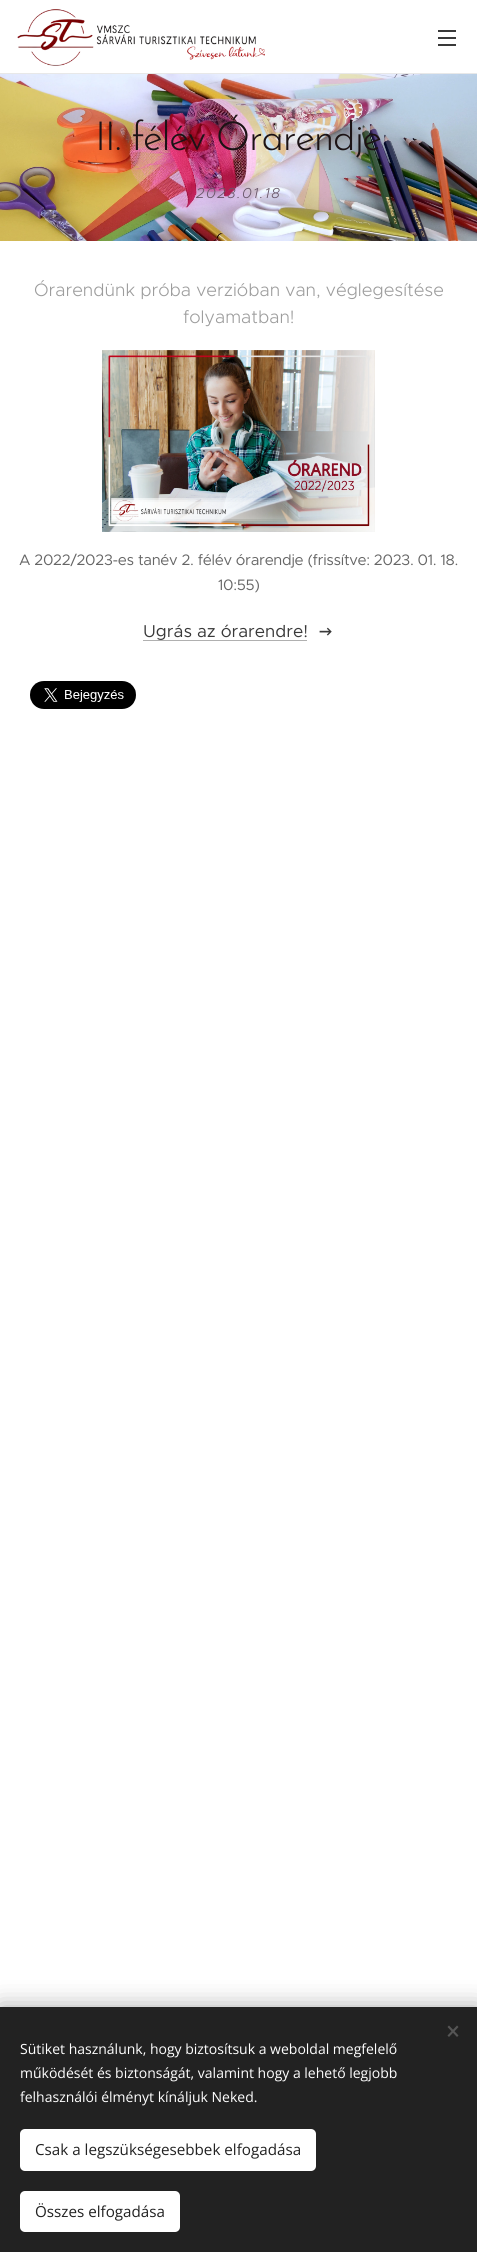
import math
import cairocffi as cairo

surface = cairo.ImageSurface(cairo.FORMAT_RGB24, 477, 2252)
cr = cairo.Context(surface)
options = cairo.FontOptions()
options.set_hint_metrics(cairo.HINT_METRICS_OFF)
options.set_hint_style(cairo.HINT_STYLE_NONE)
cr.set_font_options(options)
cr.set_miter_limit(4)


def use_color(code):
    cr.set_source_rgb(*(v / 255 for v in bytes.fromhex(code[-6:])))


def spaced_text(x, y, s, letter, word):
    cr.move_to(x, y)
    for ch in s:
        cr.show_text(ch)
        cr.rel_move_to(letter + word * (ch == ' '), 0)


def round_rect(x, y, w, h, r):
    cr.new_sub_path()
    for i, (u, v) in enumerate([(x + w - r, y + h - r), (x + r, y + h - r), (x + r, y + r), (x + w - r, y + r)]):
        cr.arc(u, v, r, i * math.pi / 2, (i + 1) * math.pi / 2)
    cr.close_path()


def shadow(x, y, w, h, r, blur, alpha):
    cr.push_group_with_content(cairo.CONTENT_ALPHA)
    cr.set_operator(cairo.OPERATOR_SOURCE)
    for i in range(15, -16, -2):
        e = blur * i / 6
        if min(w, h) + 2 * e > 0:
            cr.set_source_rgba(0, 0, 0, alpha * math.erfc((i - 1) / 8.5) / 2)
            round_rect(x - e, y - e, w + 2 * e, h + 2 * e, max(0, min(r + e + blur * .6, min(w, h) / 2 + e)))
            cr.fill()
    cr.mask(cr.pop_group())


def picture(path, x, y, w, h):
    cr.save()
    cr.set_source_surface(cairo.ImageSurface.create_from_png(path), x, y)
    cr.rectangle(x, y, w, h)
    cr.fill()
    cr.restore()


use_color("#ffffff")
cr.paint()
picture("img1.png", 17, 9, 248, 57)
use_color("#393939")
cr.rectangle(438, 37, 18, 2)
cr.fill()
cr.rectangle(438, 30, 18, 2)
cr.fill()
cr.rectangle(438, 44, 18, 2)
cr.fill()
use_color("#e8e8e8")
cr.rectangle(0, 73, 477, 1)
cr.fill()
picture("img2.png", 0, 74, 477, 167)
cr.select_font_face("Josefin Sans Light")
cr.set_font_size(40)
use_color("#1c1315")
spaced_text(95, 150, "II. félév Órarendje", -1.25, 0)
cr.select_font_face("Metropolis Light", cairo.FONT_SLANT_ITALIC)
cr.set_font_size(14.5)
use_color("#685668")
spaced_text(196, 198, "2023.01.18", 1.5, 0)
cr.select_font_face("Metropolis Light")
cr.set_font_size(18)
use_color("#9d9d9d")
cr.move_to(34, 296)
cr.show_text("Órarendünk próba verzióban van, véglegesítése")
cr.move_to(183, 323)
cr.show_text("folyamatban!")
picture("img3.png", 102, 350, 273, 182)
cr.select_font_face("Metropolis")
cr.set_font_size(15.2)
use_color("#666666")
spaced_text(19, 565, "A 2022/2023-es tanév 2. félév órarendje (frissítve: 2023. 01. 18.", -0.3, 0)
spaced_text(218, 590, "10:55)", -0.3, 0)
cr.set_font_size(17.25)
use_color("#393939")
cr.move_to(143, 637)
cr.show_text("Ugrás az órarendre!")
use_color("#b0b0b0")
cr.rectangle(143, 640, 164, 1)
cr.fill()
picture("img4.png", 319, 627, 13, 9)
picture("img5.png", 30, 681, 106, 28)
use_color("#000000")
shadow(0, 2007, 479, 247, 0, 12.5, 0.33)
use_color("#222222")
cr.rectangle(0, 2007, 477, 245)
cr.fill()
use_color("#555555")
cr.new_path()
cr.move_to(447.5, 2035.5)
cr.line_to(457, 2025.5)
cr.line_to(458.5, 2027)
cr.line_to(449, 2037)
cr.close_path()
cr.fill()
cr.new_path()
cr.move_to(449, 2025.5)
cr.line_to(458.5, 2035.5)
cr.line_to(457, 2037)
cr.line_to(447.5, 2027)
cr.close_path()
cr.fill()
cr.select_font_face("Open Sans")
cr.set_font_size(14)
use_color("#ffffff")
cr.move_to(20, 2054)
cr.show_text("Sütiket használunk, hogy biztosítsuk a weboldal megfelelő")
cr.move_to(20, 2078)
cr.show_text("működését és biztonságát, valamint hogy a lehető legjobb")
cr.move_to(20, 2102)
cr.show_text("felhasználói élményt kínáljuk Neked.")
round_rect(20, 2129, 296, 42, 5)
cr.fill()
cr.set_font_size(15.2)
use_color("#222222")
cr.move_to(35, 2155)
cr.show_text("Csak a legszükségesebbek elfogadása")
use_color("#ffffff")
round_rect(20, 2191, 160, 41, 5)
cr.fill()
use_color("#222222")
cr.move_to(35, 2217)
cr.show_text("Összes elfogadása")
surface.write_to_png("result.png")
